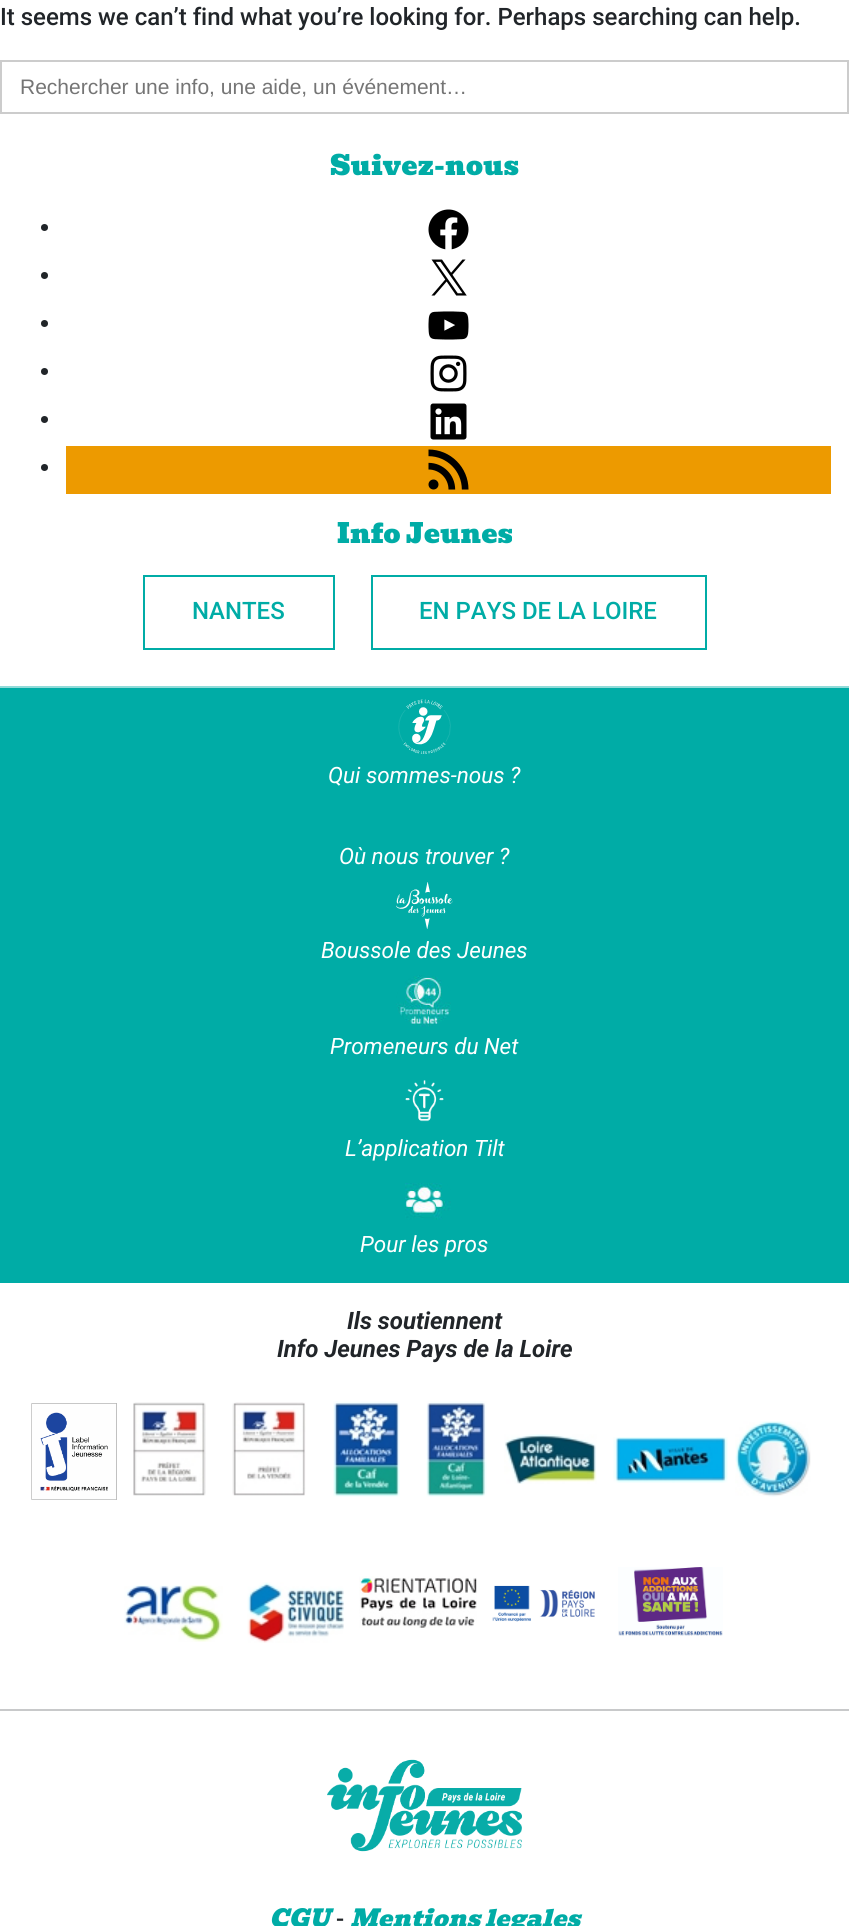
import math
import cairocffi as cairo

surface = cairo.ImageSurface(cairo.FORMAT_RGB24, 849, 1926)
cr = cairo.Context(surface)
options = cairo.FontOptions()
options.set_hint_metrics(cairo.HINT_METRICS_OFF)
options.set_hint_style(cairo.HINT_STYLE_NONE)
cr.set_font_options(options)
cr.set_miter_limit(4)


def use_color(code):
    cr.set_source_rgb(*(v / 255 for v in bytes.fromhex(code[-6:])))


def picture(path, x, y, w, h):
    cr.save()
    cr.set_source_surface(cairo.ImageSurface.create_from_png(path), x, y)
    cr.rectangle(x, y, w, h)
    cr.fill()
    cr.restore()


use_color("#ffffff")
cr.paint()
cr.select_font_face("Roboto Medium")
cr.set_font_size(24)
use_color("#212529")
cr.move_to(0, 25)
cr.show_text("It seems we can’t find what you’re looking for. Perhaps searching can help.")
cr.rectangle(1, 61, 847, 52)
use_color("#cccccc")
cr.stroke()
cr.select_font_face("Liberation Sans")
cr.set_font_size(21)
use_color("#757575")
cr.move_to(20, 94)
cr.show_text("Rechercher une info, une aide, un événement…")
cr.select_font_face("Bevan")
cr.set_font_size(27)
use_color("#00aca6")
cr.move_to(330, 175)
cr.show_text("Suivez-nous")
use_color("#212529")
cr.new_path()
cr.arc(44.5, 227.5, 3.5, 0, 2 * math.pi)
cr.fill()
picture("img1.png", 428, 209, 41, 41)
cr.arc(44.5, 275.5, 3.5, 0, 2 * math.pi)
cr.fill()
picture("img2.png", 431, 259, 36, 37)
cr.arc(44.5, 323.5, 3.5, 0, 2 * math.pi)
cr.fill()
picture("img3.png", 428, 311, 41, 29)
cr.arc(44.5, 371.5, 3.5, 0, 2 * math.pi)
cr.fill()
picture("img4.png", 430, 355, 37, 37)
cr.arc(44.5, 419.5, 3.5, 0, 2 * math.pi)
cr.fill()
picture("img5.png", 430, 403, 37, 37)
use_color("#ed9a00")
cr.rectangle(66, 446, 765, 48)
cr.fill()
use_color("#212529")
cr.arc(44.5, 467.5, 3.5, 0, 2 * math.pi)
cr.fill()
picture("img6.png", 428, 449, 41, 41)
use_color("#00aca6")
cr.move_to(337, 543)
cr.show_text("Info Jeunes")
cr.rectangle(144, 576, 190, 73)
cr.stroke()
cr.select_font_face("Roboto Medium")
cr.set_font_size(24)
cr.move_to(192, 619)
cr.show_text("NANTES")
cr.rectangle(372, 576, 334, 73)
cr.stroke()
cr.move_to(419, 619)
cr.show_text("EN PAYS DE LA LOIRE")
cr.rectangle(0, 688, 849, 595)
cr.fill()
use_color("#91dbd9")
cr.rectangle(0, 686, 849, 2)
cr.fill()
picture("img7.png", 398, 699, 53, 55)
cr.select_font_face("Roboto", cairo.FONT_SLANT_ITALIC)
cr.set_font_size(22.5)
use_color("#ffffff")
cr.move_to(328, 783)
cr.show_text("Qui sommes-nous ?")
cr.move_to(339, 864)
cr.show_text("Où nous trouver ?")
picture("img8.png", 396, 882, 57, 47)
cr.move_to(321, 958)
cr.show_text("Boussole des Jeunes")
picture("img9.png", 396, 975, 55, 52)
cr.move_to(330, 1054)
cr.show_text("Promeneurs du Net")
picture("img10.png", 405, 1080, 39, 42)
cr.move_to(345, 1156)
cr.show_text("L’application Tilt")
picture("img11.png", 405, 1183, 46, 37)
cr.move_to(360, 1252)
cr.show_text("Pour les pros")
cr.select_font_face("Roboto", cairo.FONT_SLANT_ITALIC, cairo.FONT_WEIGHT_BOLD)
cr.set_font_size(24)
use_color("#212529")
cr.move_to(347, 1329)
cr.show_text("Ils soutiennent")
cr.move_to(277, 1357)
cr.show_text("Info Jeunes Pays de la Loire")
picture("img12.png", 31, 1403, 86, 97)
picture("img13.png", 133, 1402, 73, 94)
picture("img14.png", 232, 1402, 74, 94)
picture("img15.png", 333, 1401, 67, 96)
picture("img16.png", 426, 1401, 61, 96)
picture("img17.png", 504, 1434, 93, 50)
picture("img18.png", 613, 1437, 115, 46)
picture("img19.png", 735, 1421, 76, 76)
picture("img20.png", 124, 1585, 99, 57)
picture("img21.png", 247, 1582, 97, 61)
picture("img22.png", 359, 1576, 118, 52)
picture("img23.png", 492, 1585, 103, 37)
picture("img24.png", 618, 1567, 105, 69)
use_color("#c8c9ca")
cr.rectangle(0, 1709, 849, 2)
cr.fill()
picture("img25.png", 327, 1759, 195, 93)
cr.select_font_face("Bevan", cairo.FONT_SLANT_ITALIC)
use_color("#00aca6")
cr.move_to(269, 1927)
cr.show_text("CGU")
cr.select_font_face("Roboto Medium")
use_color("#212529")
cr.move_to(336, 1927)
cr.show_text("-")
cr.select_font_face("Bevan", cairo.FONT_SLANT_ITALIC)
use_color("#00aca6")
cr.move_to(350, 1927)
cr.show_text("Mentions legales")
surface.write_to_png("result.png")
